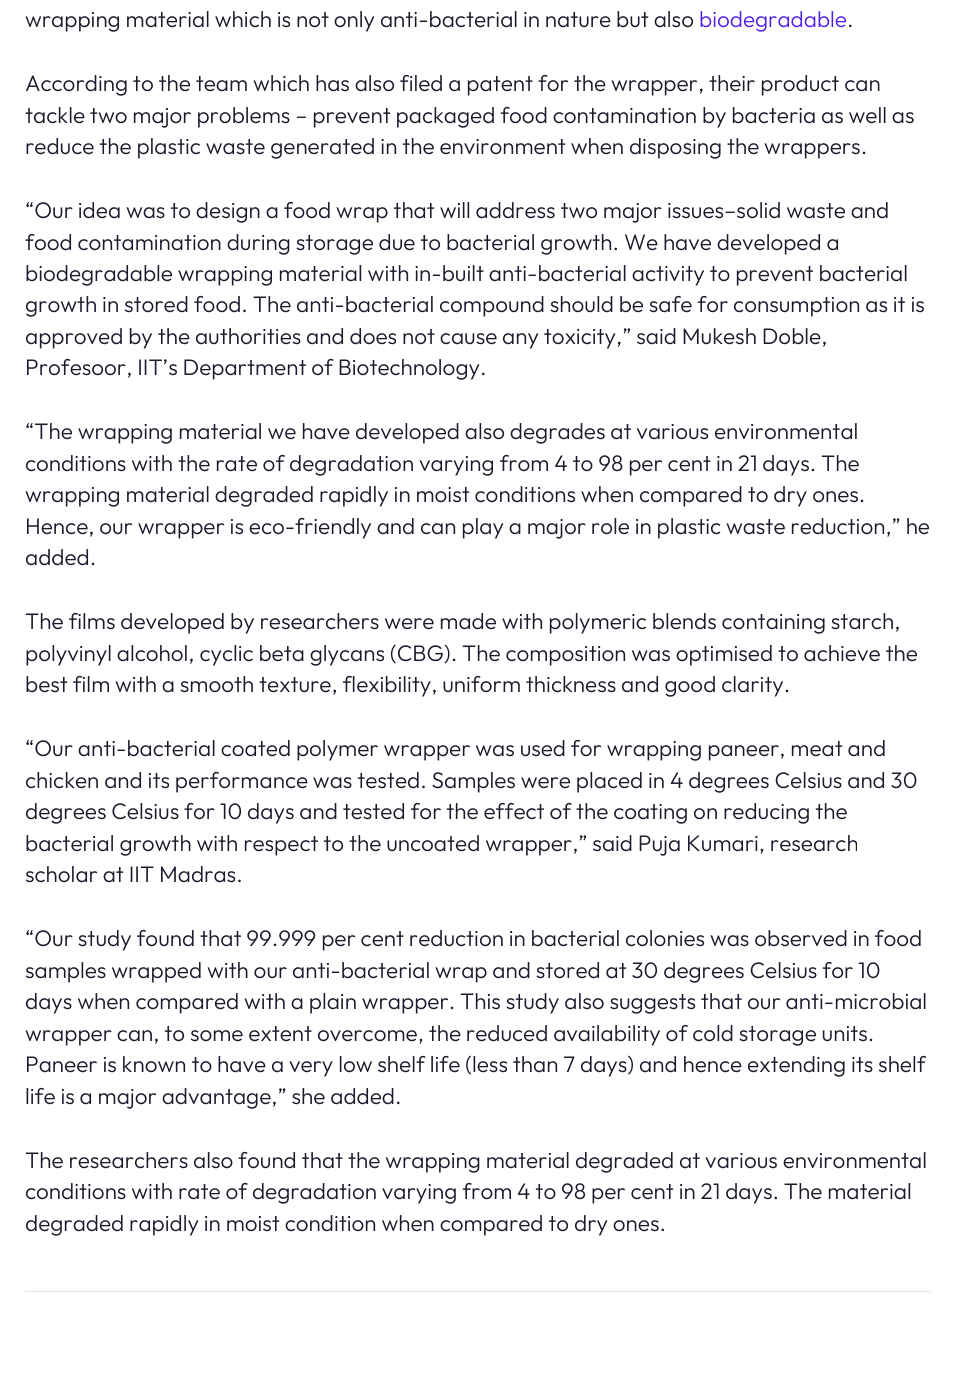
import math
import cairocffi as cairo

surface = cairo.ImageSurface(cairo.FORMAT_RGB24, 956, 1384)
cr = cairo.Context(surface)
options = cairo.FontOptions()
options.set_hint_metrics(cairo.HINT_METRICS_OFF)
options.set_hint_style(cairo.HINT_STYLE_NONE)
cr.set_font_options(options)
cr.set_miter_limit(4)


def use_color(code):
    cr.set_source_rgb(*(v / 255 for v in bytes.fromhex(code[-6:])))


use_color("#ffffff")
cr.paint()
use_color("#e1e1e1")
cr.rectangle(25, 1291, 906, 1)
cr.fill()
cr.select_font_face("Outfit Light")
cr.set_font_size(22.5)
use_color("#1a1a2c")
cr.move_to(25, 27)
cr.show_text("wrapping material which is not only anti-bacterial in nature but also")
use_color("#5220e9")
cr.move_to(699, 27)
cr.show_text("biodegradable")
use_color("#1a1a2c")
cr.move_to(847, 27)
cr.show_text(".")
cr.move_to(25, 91)
cr.show_text("According to the team which has also filed a patent for the wrapper, their product can")
cr.move_to(25, 123)
cr.show_text("tackle two major problems – prevent packaged food contamination by bacteria as well as")
cr.move_to(25, 154)
cr.show_text("reduce the plastic waste generated in the environment when disposing the wrappers.")
cr.move_to(25, 218)
cr.show_text("“Our idea was to design a food wrap that will address two major issues–solid waste and")
cr.move_to(25, 250)
cr.show_text("food contamination during storage due to bacterial growth. We have developed a")
cr.move_to(25, 281)
cr.show_text("biodegradable wrapping material with in-built anti-bacterial activity to prevent bacterial")
cr.move_to(25, 312)
cr.show_text("growth in stored food. The anti-bacterial compound should be safe for consumption as it is")
cr.move_to(25, 344)
cr.show_text("approved by the authorities and does not cause any toxicity,” said Mukesh Doble,")
cr.move_to(25, 375)
cr.show_text("Profesoor, IIT’s Department of Biotechnology.")
cr.move_to(25, 439)
cr.show_text("“The wrapping material we have developed also degrades at various environmental")
cr.move_to(25, 471)
cr.show_text("conditions with the rate of degradation varying from 4 to 98 per cent in 21 days. The")
cr.move_to(25, 502)
cr.show_text("wrapping material degraded rapidly in moist conditions when compared to dry ones.")
cr.move_to(25, 534)
cr.show_text("Hence, our wrapper is eco-friendly and can play a major role in plastic waste reduction,” he")
cr.move_to(25, 565)
cr.show_text("added.")
cr.move_to(25, 629)
cr.show_text("The films developed by researchers were made with polymeric blends containing starch,")
cr.move_to(25, 661)
cr.show_text("polyvinyl alcohol, cyclic beta glycans (CBG). The composition was optimised to achieve the")
cr.move_to(25, 692)
cr.show_text("best film with a smooth texture, flexibility, uniform thickness and good clarity.")
cr.move_to(25, 756)
cr.show_text("“Our anti-bacterial coated polymer wrapper was used for wrapping paneer, meat and")
cr.move_to(25, 788)
cr.show_text("chicken and its performance was tested. Samples were placed in 4 degrees Celsius and 30")
cr.move_to(25, 819)
cr.show_text("degrees Celsius for 10 days and tested for the effect of the coating on reducing the")
cr.move_to(25, 851)
cr.show_text("bacterial growth with respect to the uncoated wrapper,” said Puja Kumari, research")
cr.move_to(25, 882)
cr.show_text("scholar at IIT Madras.")
cr.move_to(25, 946)
cr.show_text("“Our study found that 99.999 per cent reduction in bacterial colonies was observed in food")
cr.move_to(25, 978)
cr.show_text("samples wrapped with our anti-bacterial wrap and stored at 30 degrees Celsius for 10")
cr.move_to(25, 1009)
cr.show_text("days when compared with a plain wrapper. This study also suggests that our anti-microbial")
cr.move_to(25, 1041)
cr.show_text("wrapper can, to some extent overcome, the reduced availability of cold storage units.")
cr.move_to(25, 1072)
cr.show_text("Paneer is known to have a very low shelf life (less than 7 days) and hence extending its shelf")
cr.move_to(25, 1104)
cr.show_text("life is a major advantage,” she added.")
cr.move_to(25, 1168)
cr.show_text("The researchers also found that the wrapping material degraded at various environmental")
cr.move_to(25, 1199)
cr.show_text("conditions with rate of degradation varying from 4 to 98 per cent in 21 days. The material")
cr.move_to(25, 1231)
cr.show_text("degraded rapidly in moist condition when compared to dry ones.")
surface.write_to_png("result.png")
